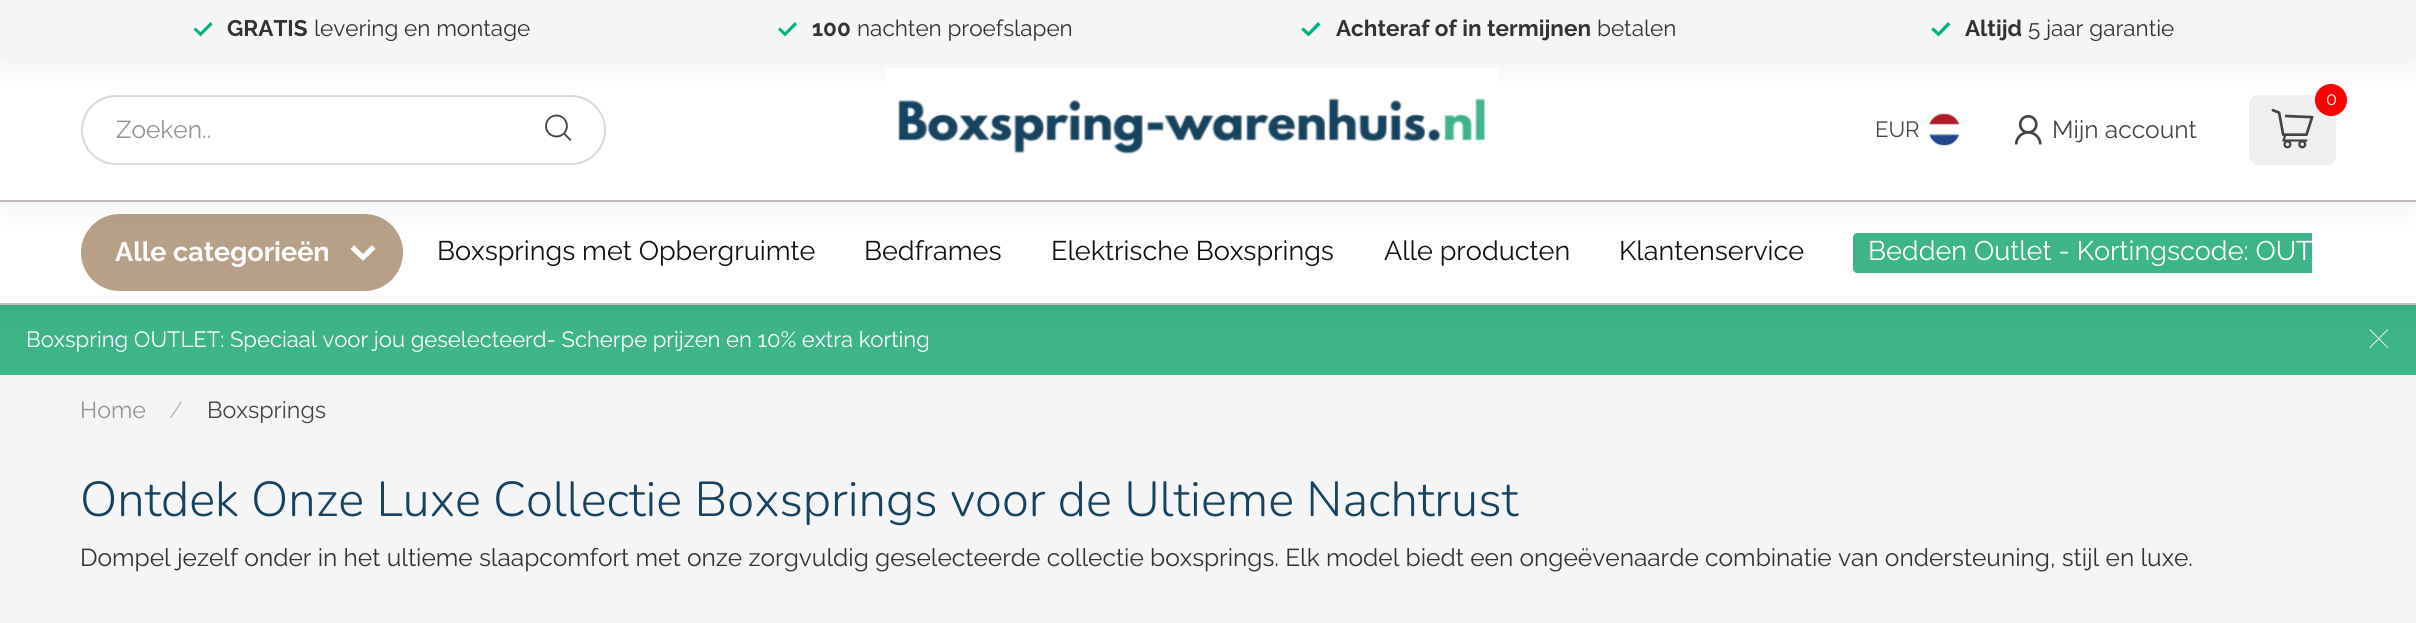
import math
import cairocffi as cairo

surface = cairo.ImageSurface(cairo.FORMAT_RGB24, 2416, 623)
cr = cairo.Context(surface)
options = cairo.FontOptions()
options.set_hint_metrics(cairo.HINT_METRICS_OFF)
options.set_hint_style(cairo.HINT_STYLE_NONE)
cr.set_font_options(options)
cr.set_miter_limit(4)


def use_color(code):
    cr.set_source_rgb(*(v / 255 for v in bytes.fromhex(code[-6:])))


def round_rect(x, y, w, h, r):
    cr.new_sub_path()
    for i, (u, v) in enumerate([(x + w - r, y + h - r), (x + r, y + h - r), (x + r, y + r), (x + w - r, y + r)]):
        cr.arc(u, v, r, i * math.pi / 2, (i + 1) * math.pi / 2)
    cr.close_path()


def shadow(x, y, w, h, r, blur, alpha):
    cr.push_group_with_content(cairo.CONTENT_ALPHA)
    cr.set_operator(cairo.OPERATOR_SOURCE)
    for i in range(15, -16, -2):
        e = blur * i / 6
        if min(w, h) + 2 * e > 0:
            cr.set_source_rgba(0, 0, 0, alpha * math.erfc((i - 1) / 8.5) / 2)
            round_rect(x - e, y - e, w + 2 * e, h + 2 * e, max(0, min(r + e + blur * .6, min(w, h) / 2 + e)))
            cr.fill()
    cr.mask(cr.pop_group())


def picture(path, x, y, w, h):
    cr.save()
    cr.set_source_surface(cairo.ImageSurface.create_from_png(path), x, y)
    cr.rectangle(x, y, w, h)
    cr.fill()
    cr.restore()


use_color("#f5f5f5")
cr.paint()
use_color("#3eb489")
cr.rectangle(0, 305, 2416, 70)
cr.fill()
picture("img6.png", 2369, 329, 20, 19)
use_color("#000000")
shadow(0, 200, 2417, 105, 0, 19, 0.08)
use_color("#ffffff")
cr.rectangle(0, 202, 2416, 101)
cr.fill()
use_color("#cbc1c1")
cr.rectangle(0, 200, 2416, 2)
cr.fill()
use_color("#b7a085")
round_rect(81, 214, 322, 77, 38.5)
cr.fill()
use_color("#ffffff")
cr.new_path()
cr.move_to(354, 245)
cr.line_to(366, 257)
cr.line_to(362.5, 260.5)
cr.line_to(350.5, 249)
cr.close_path()
cr.fill()
cr.new_path()
cr.move_to(360, 257)
cr.line_to(372, 245)
cr.line_to(375.5, 249)
cr.line_to(363.5, 260.5)
cr.close_path()
cr.fill()
use_color("#3eb489")
cr.new_path()
cr.move_to(1857, 233)
cr.line_to(2312, 233)
cr.line_to(2312, 273)
cr.line_to(1857, 273)
cr.curve_to(1855, 273, 1853, 271, 1853, 269)
cr.line_to(1853, 237)
cr.curve_to(1853, 235, 1855, 233, 1857, 233)
cr.close_path()
cr.fill()
use_color("#000000")
shadow(0, 0, 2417, 200, 0, 19, 0.08)
use_color("#ffffff")
cr.rectangle(0, 60, 2416, 140)
cr.fill()
use_color("#000000")
shadow(0, 0, 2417, 60, 0, 19, 0.08)
use_color("#f5f5f5")
cr.rectangle(0, 0, 2416, 60)
cr.fill()
use_color("#00b282")
cr.new_path()
cr.move_to(200.5, 36.5)
cr.line_to(193.5, 29.5)
cr.line_to(195.5, 27.5)
cr.line_to(200.5, 32)
cr.line_to(210.5, 22)
cr.line_to(212.5, 24.5)
cr.close_path()
cr.fill()
cr.select_font_face("Raleway", cairo.FONT_SLANT_NORMAL, cairo.FONT_WEIGHT_BOLD)
cr.set_font_size(22.5)
use_color("#333333")
cr.move_to(227, 36)
cr.show_text("GRATIS")
cr.select_font_face("Raleway")
cr.move_to(314, 36)
cr.show_text("levering en montage")
use_color("#00b282")
cr.new_path()
cr.move_to(785, 36.5)
cr.line_to(778, 29.5)
cr.line_to(780, 27.5)
cr.line_to(785, 32)
cr.line_to(795, 22)
cr.line_to(797, 24.5)
cr.close_path()
cr.fill()
cr.select_font_face("Raleway", cairo.FONT_SLANT_NORMAL, cairo.FONT_WEIGHT_BOLD)
use_color("#333333")
cr.move_to(812, 36)
cr.show_text("100")
cr.select_font_face("Raleway")
cr.move_to(857, 36)
cr.show_text("nachten proefslapen")
use_color("#00b282")
cr.new_path()
cr.move_to(1308.5, 36.5)
cr.line_to(1301, 29.5)
cr.line_to(1303.5, 27.5)
cr.line_to(1308.5, 32)
cr.line_to(1318, 22)
cr.line_to(1320.5, 24.5)
cr.close_path()
cr.fill()
cr.select_font_face("Raleway", cairo.FONT_SLANT_NORMAL, cairo.FONT_WEIGHT_BOLD)
use_color("#333333")
cr.move_to(1336, 36)
cr.show_text("Achteraf of in termijnen")
cr.select_font_face("Raleway")
cr.move_to(1597, 36)
cr.show_text("betalen")
use_color("#00b282")
cr.new_path()
cr.move_to(1938.5, 36.5)
cr.line_to(1931, 29.5)
cr.line_to(1933.5, 27.5)
cr.line_to(1938.5, 32)
cr.line_to(1948, 22)
cr.line_to(1950.5, 24.5)
cr.close_path()
cr.fill()
cr.select_font_face("Raleway", cairo.FONT_SLANT_NORMAL, cairo.FONT_WEIGHT_BOLD)
use_color("#333333")
cr.move_to(1965, 36)
cr.show_text("Altijd")
cr.select_font_face("Raleway")
cr.move_to(2028, 36)
cr.show_text("5 jaar garantie")
round_rect(82, 96, 523, 68, 34)
use_color("#d9d9d9")
cr.stroke()
cr.set_font_size(24.5)
use_color("#949494")
cr.move_to(116, 138)
cr.show_text("Zoeken..")
picture("img1.png", 545, 114, 27, 27)
picture("img2.png", 886, 68, 612, 86)
use_color("#efefef")
round_rect(2249, 95, 87, 70, 9)
cr.fill()
use_color("#ff0000")
cr.arc(2331, 100, 16, 0, 2 * math.pi)
cr.fill()
cr.set_font_size(18)
use_color("#ffffff")
cr.move_to(2326, 105)
cr.show_text("0")
picture("img3.png", 2271, 108, 43, 41)
cr.set_font_size(22.05)
use_color("#464646")
cr.move_to(1875, 137)
cr.show_text("EUR")
picture("img4.png", 1928, 113, 32, 33)
picture("img5.png", 2014, 115, 28, 30)
cr.set_font_size(24.5)
cr.move_to(2052, 138)
cr.show_text("Mijn account")
use_color("#cbc1c1")
cr.rectangle(0, 303, 2416, 2)
cr.fill()
cr.select_font_face("Raleway", cairo.FONT_SLANT_NORMAL, cairo.FONT_WEIGHT_BOLD)
cr.set_font_size(27)
use_color("#ffffff")
cr.move_to(115, 261)
cr.show_text("Alle categorieën")
cr.select_font_face("Raleway")
use_color("#111111")
cr.move_to(437, 260)
cr.show_text("Boxsprings met Opbergruimte")
cr.move_to(864, 260)
cr.show_text("Bedframes")
cr.move_to(1051, 260)
cr.show_text("Elektrische Boxsprings")
cr.move_to(1384, 260)
cr.show_text("Alle producten")
cr.move_to(1619, 260)
cr.show_text("Klantenservice")
use_color("#ffffff")
cr.move_to(1868, 260)
cr.show_text("Bedden Outlet - Kortingscode: OUT")
cr.set_font_size(22.05)
cr.move_to(26, 347)
cr.show_text("Boxspring OUTLET: Speciaal voor jou geselecteerd- Scherpe prijzen en 10% extra korting")
cr.set_font_size(23.25)
use_color("#949494")
cr.move_to(80, 418)
cr.show_text("Home")
use_color("#bbbbbb")
cr.move_to(169, 418)
cr.show_text("/")
use_color("#464646")
cr.move_to(207, 418)
cr.show_text("Boxsprings")
cr.select_font_face("Nunito Light")
cr.set_font_size(49)
use_color("#154360")
cr.move_to(80, 516)
cr.show_text("Ontdek Onze Luxe Collectie Boxsprings voor de Ultieme Nachtrust")
cr.select_font_face("Raleway")
cr.set_font_size(24.5)
use_color("#333333")
cr.move_to(80, 566)
cr.show_text("Dompel jezelf onder in het ultieme slaapcomfort met onze zorgvuldig geselecteerde collectie boxsprings. Elk model biedt een ongeëvenaarde combinatie van ondersteuning, stijl en luxe.")
surface.write_to_png("result.png")
